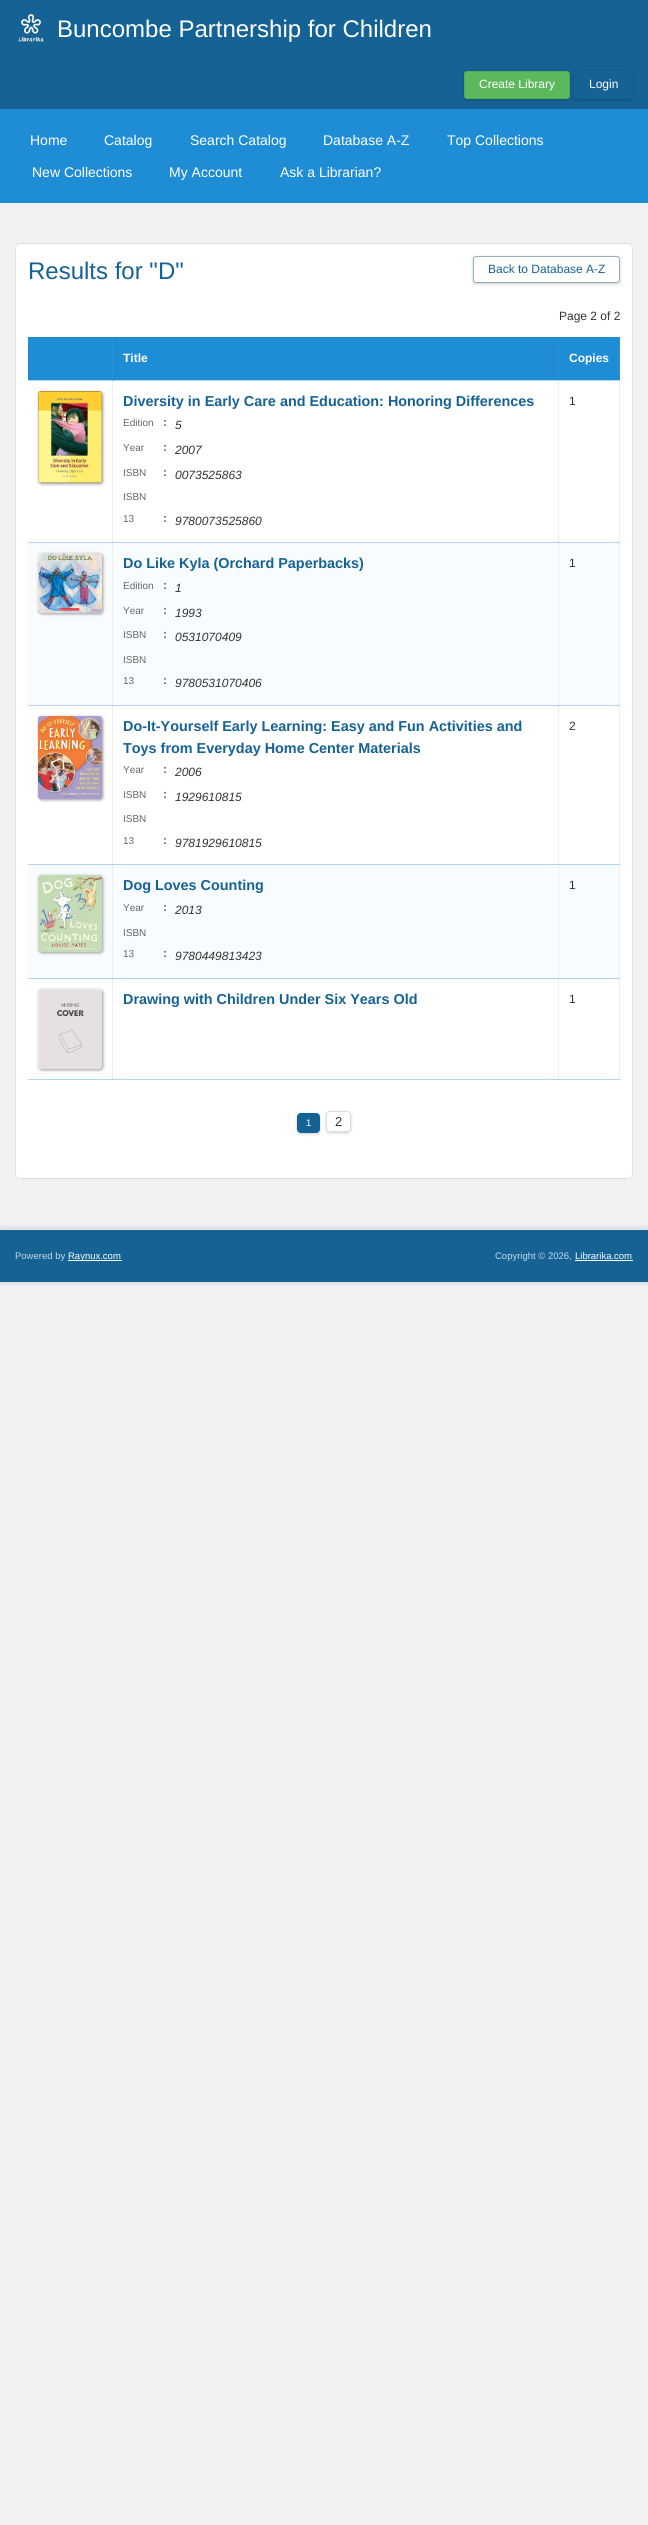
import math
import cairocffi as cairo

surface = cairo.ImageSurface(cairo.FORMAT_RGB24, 648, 2525)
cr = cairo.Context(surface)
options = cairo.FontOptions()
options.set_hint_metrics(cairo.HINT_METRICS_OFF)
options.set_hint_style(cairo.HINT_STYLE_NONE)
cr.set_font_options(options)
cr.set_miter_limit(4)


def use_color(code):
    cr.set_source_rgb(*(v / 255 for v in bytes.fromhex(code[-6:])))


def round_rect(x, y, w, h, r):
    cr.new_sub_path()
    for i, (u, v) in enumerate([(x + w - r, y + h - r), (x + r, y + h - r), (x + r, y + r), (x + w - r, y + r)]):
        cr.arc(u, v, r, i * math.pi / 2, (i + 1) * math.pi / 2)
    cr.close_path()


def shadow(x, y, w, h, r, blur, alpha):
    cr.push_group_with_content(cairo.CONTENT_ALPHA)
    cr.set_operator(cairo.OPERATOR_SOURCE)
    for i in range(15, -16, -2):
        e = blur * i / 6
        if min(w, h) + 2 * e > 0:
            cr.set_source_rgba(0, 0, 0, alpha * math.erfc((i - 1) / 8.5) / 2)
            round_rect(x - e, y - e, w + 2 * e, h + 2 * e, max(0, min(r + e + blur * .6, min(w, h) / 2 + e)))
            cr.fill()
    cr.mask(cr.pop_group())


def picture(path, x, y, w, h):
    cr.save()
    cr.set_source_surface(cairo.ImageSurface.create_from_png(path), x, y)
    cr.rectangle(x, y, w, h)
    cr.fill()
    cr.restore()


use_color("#f2f2f2")
cr.paint()
use_color("#156295")
cr.rectangle(0, 0, 648, 109)
cr.fill()
picture("img1.png", 18, 14, 26, 28)
cr.select_font_face("Liberation Sans")
cr.set_font_size(24)
use_color("#ffffff")
cr.move_to(57, 37)
cr.show_text("Buncombe Partnership for Children")
use_color("#000000")
shadow(464, 72, 106, 28, 3, 1.5, 0.2)
use_color("#5cb85c")
round_rect(464.5, 71.5, 105, 27, 2.5)
cr.fill_preserve()
use_color("#4cae4c")
cr.set_line_width(1)
cr.stroke()
cr.set_font_size(12)
use_color("#ffffff")
cr.move_to(479, 88)
cr.show_text("Create Library")
use_color("#000000")
shadow(574, 72, 59, 28, 3, 1.5, 0.2)
use_color("#156295")
round_rect(574.5, 71.5, 58, 27, 2.5)
cr.fill_preserve()
cr.stroke()
use_color("#ffffff")
cr.move_to(589, 88)
cr.show_text("Login")
use_color("#1f8dd6")
cr.rectangle(0, 109, 648, 94)
cr.fill()
cr.set_font_size(14)
use_color("#ffffff")
cr.move_to(30, 145)
cr.show_text("Home")
cr.move_to(104, 145)
cr.show_text("Catalog")
cr.move_to(190, 145)
cr.show_text("Search Catalog")
cr.move_to(323, 145)
cr.show_text("Database A-Z")
cr.move_to(447, 145)
cr.show_text("Top Collections")
cr.move_to(32, 177)
cr.show_text("New Collections")
cr.move_to(169, 177)
cr.show_text("My Account")
cr.move_to(280, 177)
cr.show_text("Ask a Librarian?")
round_rect(15, 243, 618, 936, 5)
cr.fill()
use_color("#b1d7f1")
cr.rectangle(28, 380, 592, 1)
cr.fill()
cr.rectangle(28, 542, 85, 1)
cr.fill()
use_color("#f0f0f0")
cr.rectangle(112, 380, 1, 163)
cr.fill()
use_color("#79b7e1")
cr.rectangle(112, 380, 1, 1)
cr.fill()
use_color("#b1d7f1")
cr.rectangle(112, 542, 447, 1)
cr.fill()
use_color("#f0f0f0")
cr.rectangle(558, 380, 1, 163)
cr.fill()
use_color("#79b7e1")
cr.rectangle(558, 380, 1, 1)
cr.fill()
use_color("#b1d7f1")
cr.rectangle(558, 542, 62, 1)
cr.fill()
use_color("#f0f0f0")
cr.rectangle(619, 380, 1, 163)
cr.fill()
use_color("#a7cde7")
cr.rectangle(619, 380, 1, 1)
cr.fill()
use_color("#b1d7f1")
cr.rectangle(28, 705, 592, 1)
cr.fill()
use_color("#93c2e2")
cr.rectangle(112, 542, 1, 1)
cr.fill()
cr.rectangle(558, 542, 1, 1)
cr.fill()
use_color("#a4cae4")
cr.rectangle(619, 542, 1, 1)
cr.fill()
use_color("#b1d7f1")
cr.rectangle(28, 864, 85, 1)
cr.fill()
use_color("#f0f0f0")
cr.rectangle(112, 705, 1, 160)
cr.fill()
use_color("#93c2e2")
cr.rectangle(112, 705, 1, 1)
cr.fill()
use_color("#b1d7f1")
cr.rectangle(112, 864, 447, 1)
cr.fill()
use_color("#f0f0f0")
cr.rectangle(558, 705, 1, 160)
cr.fill()
use_color("#93c2e2")
cr.rectangle(558, 705, 1, 1)
cr.fill()
use_color("#b1d7f1")
cr.rectangle(558, 864, 62, 1)
cr.fill()
use_color("#f0f0f0")
cr.rectangle(619, 705, 1, 160)
cr.fill()
use_color("#a4cae4")
cr.rectangle(619, 705, 1, 1)
cr.fill()
use_color("#b1d7f1")
cr.rectangle(28, 978, 592, 1)
cr.fill()
use_color("#93c2e2")
cr.rectangle(112, 864, 1, 1)
cr.fill()
cr.rectangle(558, 864, 1, 1)
cr.fill()
use_color("#a4cae4")
cr.rectangle(619, 864, 1, 1)
cr.fill()
use_color("#b1d7f1")
cr.rectangle(28, 1079, 85, 1)
cr.fill()
use_color("#f0f0f0")
cr.rectangle(112, 978, 1, 102)
cr.fill()
use_color("#93c2e2")
cr.rectangle(112, 978, 1, 1)
cr.fill()
use_color("#b1d7f1")
cr.rectangle(112, 1079, 447, 1)
cr.fill()
use_color("#95c4e4")
cr.rectangle(112, 1079, 1, 1)
cr.fill()
use_color("#f0f0f0")
cr.rectangle(558, 978, 1, 102)
cr.fill()
use_color("#93c2e2")
cr.rectangle(558, 978, 1, 1)
cr.fill()
use_color("#b1d7f1")
cr.rectangle(558, 1079, 62, 1)
cr.fill()
use_color("#95c4e4")
cr.rectangle(558, 1079, 1, 1)
cr.fill()
round_rect(15.5, 243.5, 617, 935, 4.5)
use_color("#e0e0e0")
cr.stroke()
cr.set_font_size(24)
use_color("#156295")
cr.move_to(28, 279)
cr.show_text("Results for \"D\"")
use_color("#000000")
shadow(473, 257, 147, 27, 3, 1.5, 0.2)
use_color("#ffffff")
round_rect(473.5, 256.5, 146, 26, 2.5)
cr.fill_preserve()
use_color("#95afbb")
cr.stroke()
cr.set_font_size(12)
use_color("#156295")
cr.move_to(488, 273)
cr.show_text("Back to Database A-Z")
use_color("#333333")
cr.move_to(559, 320)
cr.show_text("Page 2 of 2")
use_color("#1f8dd6")
cr.rectangle(28, 337, 592, 1)
cr.fill()
use_color("#2992d7")
cr.rectangle(112, 337, 1, 1)
cr.fill()
cr.rectangle(558, 337, 1, 1)
cr.fill()
cr.rectangle(619, 337, 1, 1)
cr.fill()
use_color("#1f8dd6")
cr.rectangle(28, 338, 84, 42)
cr.fill()
use_color("#2992d7")
cr.rectangle(112, 338, 1, 42)
cr.fill()
use_color("#1f8dd6")
cr.rectangle(113, 338, 445, 42)
cr.fill()
cr.select_font_face("Liberation Sans", cairo.FONT_SLANT_NORMAL, cairo.FONT_WEIGHT_BOLD)
use_color("#ffffff")
cr.move_to(123, 362)
cr.show_text("Title")
use_color("#1f8dd6")
cr.rectangle(559, 338, 60, 42)
cr.fill()
use_color("#2992d7")
cr.rectangle(558, 338, 1, 42)
cr.fill()
cr.rectangle(619, 338, 1, 42)
cr.fill()
use_color("#ffffff")
cr.move_to(569, 362)
cr.show_text("Copies")
use_color("#999999")
shadow(39, 392, 64, 92, 3, 1.5, 1)
picture("img2.png", 38, 391, 64, 92)
cr.set_font_size(14.4)
use_color("#156295")
cr.move_to(123, 406)
cr.show_text("Diversity in Early Care and Education: Honoring Differences")
cr.select_font_face("Liberation Sans")
cr.set_font_size(10)
use_color("#666666")
cr.move_to(123, 426)
cr.show_text("Edition")
cr.select_font_face("Liberation Sans", cairo.FONT_SLANT_NORMAL, cairo.FONT_WEIGHT_BOLD)
cr.set_font_size(12)
cr.move_to(163, 426)
cr.show_text(":")
cr.select_font_face("Liberation Sans", cairo.FONT_SLANT_ITALIC)
use_color("#333333")
cr.move_to(175, 429)
cr.show_text("5")
cr.select_font_face("Liberation Sans")
cr.set_font_size(10)
use_color("#666666")
cr.move_to(123, 451)
cr.show_text("Year")
cr.select_font_face("Liberation Sans", cairo.FONT_SLANT_NORMAL, cairo.FONT_WEIGHT_BOLD)
cr.set_font_size(12)
cr.move_to(163, 451)
cr.show_text(":")
cr.select_font_face("Liberation Sans", cairo.FONT_SLANT_ITALIC)
use_color("#333333")
cr.move_to(175, 454)
cr.show_text("2007")
cr.select_font_face("Liberation Sans")
cr.set_font_size(10)
use_color("#666666")
cr.move_to(123, 476)
cr.show_text("ISBN")
cr.select_font_face("Liberation Sans", cairo.FONT_SLANT_NORMAL, cairo.FONT_WEIGHT_BOLD)
cr.set_font_size(12)
cr.move_to(163, 476)
cr.show_text(":")
cr.select_font_face("Liberation Sans", cairo.FONT_SLANT_ITALIC)
use_color("#333333")
cr.move_to(175, 479)
cr.show_text("0073525863")
cr.select_font_face("Liberation Sans")
cr.set_font_size(10)
use_color("#666666")
cr.move_to(123, 500)
cr.show_text("ISBN")
cr.move_to(123, 522)
cr.show_text("13")
cr.select_font_face("Liberation Sans", cairo.FONT_SLANT_NORMAL, cairo.FONT_WEIGHT_BOLD)
cr.set_font_size(12)
cr.move_to(163, 522)
cr.show_text(":")
cr.select_font_face("Liberation Sans", cairo.FONT_SLANT_ITALIC)
use_color("#333333")
cr.move_to(175, 525)
cr.show_text("9780073525860")
cr.select_font_face("Liberation Sans")
cr.move_to(569, 405)
cr.show_text("1")
use_color("#f9fcfe")
cr.rectangle(28, 543, 591, 162)
cr.fill()
use_color("#eeeff0")
cr.rectangle(112, 543, 1, 162)
cr.fill()
cr.rectangle(558, 543, 1, 162)
cr.fill()
cr.rectangle(619, 543, 1, 162)
cr.fill()
use_color("#999999")
shadow(39, 554, 64, 60, 3, 1.5, 1)
picture("img3.png", 38, 553, 64, 60)
cr.select_font_face("Liberation Sans", cairo.FONT_SLANT_NORMAL, cairo.FONT_WEIGHT_BOLD)
cr.set_font_size(14.4)
use_color("#156295")
cr.move_to(123, 568)
cr.show_text("Do Like Kyla (Orchard Paperbacks)")
cr.select_font_face("Liberation Sans")
cr.set_font_size(10)
use_color("#666666")
cr.move_to(123, 589)
cr.show_text("Edition")
cr.select_font_face("Liberation Sans", cairo.FONT_SLANT_NORMAL, cairo.FONT_WEIGHT_BOLD)
cr.set_font_size(12)
cr.move_to(163, 589)
cr.show_text(":")
cr.select_font_face("Liberation Sans", cairo.FONT_SLANT_ITALIC)
use_color("#333333")
cr.move_to(175, 592)
cr.show_text("1")
cr.select_font_face("Liberation Sans")
cr.set_font_size(10)
use_color("#666666")
cr.move_to(123, 614)
cr.show_text("Year")
cr.select_font_face("Liberation Sans", cairo.FONT_SLANT_NORMAL, cairo.FONT_WEIGHT_BOLD)
cr.set_font_size(12)
cr.move_to(163, 614)
cr.show_text(":")
cr.select_font_face("Liberation Sans", cairo.FONT_SLANT_ITALIC)
use_color("#333333")
cr.move_to(175, 617)
cr.show_text("1993")
cr.select_font_face("Liberation Sans")
cr.set_font_size(10)
use_color("#666666")
cr.move_to(123, 638)
cr.show_text("ISBN")
cr.select_font_face("Liberation Sans", cairo.FONT_SLANT_NORMAL, cairo.FONT_WEIGHT_BOLD)
cr.set_font_size(12)
cr.move_to(163, 638)
cr.show_text(":")
cr.select_font_face("Liberation Sans", cairo.FONT_SLANT_ITALIC)
use_color("#333333")
cr.move_to(175, 641)
cr.show_text("0531070409")
cr.select_font_face("Liberation Sans")
cr.set_font_size(10)
use_color("#666666")
cr.move_to(123, 663)
cr.show_text("ISBN")
cr.move_to(123, 684)
cr.show_text("13")
cr.select_font_face("Liberation Sans", cairo.FONT_SLANT_NORMAL, cairo.FONT_WEIGHT_BOLD)
cr.set_font_size(12)
cr.move_to(163, 684)
cr.show_text(":")
cr.select_font_face("Liberation Sans", cairo.FONT_SLANT_ITALIC)
use_color("#333333")
cr.move_to(175, 687)
cr.show_text("9780531070406")
cr.select_font_face("Liberation Sans")
cr.move_to(569, 567)
cr.show_text("1")
use_color("#999999")
shadow(39, 717, 64, 83, 3, 1.5, 1)
picture("img4.png", 38, 716, 64, 83)
cr.select_font_face("Liberation Sans", cairo.FONT_SLANT_NORMAL, cairo.FONT_WEIGHT_BOLD)
cr.set_font_size(14.4)
use_color("#156295")
cr.move_to(123, 731)
cr.show_text("Do-It-Yourself Early Learning: Easy and Fun Activities and")
cr.move_to(123, 753)
cr.show_text("Toys from Everyday Home Center Materials")
cr.select_font_face("Liberation Sans")
cr.set_font_size(10)
use_color("#666666")
cr.move_to(123, 773)
cr.show_text("Year")
cr.select_font_face("Liberation Sans", cairo.FONT_SLANT_NORMAL, cairo.FONT_WEIGHT_BOLD)
cr.set_font_size(12)
cr.move_to(163, 773)
cr.show_text(":")
cr.select_font_face("Liberation Sans", cairo.FONT_SLANT_ITALIC)
use_color("#333333")
cr.move_to(175, 776)
cr.show_text("2006")
cr.select_font_face("Liberation Sans")
cr.set_font_size(10)
use_color("#666666")
cr.move_to(123, 798)
cr.show_text("ISBN")
cr.select_font_face("Liberation Sans", cairo.FONT_SLANT_NORMAL, cairo.FONT_WEIGHT_BOLD)
cr.set_font_size(12)
cr.move_to(163, 798)
cr.show_text(":")
cr.select_font_face("Liberation Sans", cairo.FONT_SLANT_ITALIC)
use_color("#333333")
cr.move_to(175, 801)
cr.show_text("1929610815")
cr.select_font_face("Liberation Sans")
cr.set_font_size(10)
use_color("#666666")
cr.move_to(123, 822)
cr.show_text("ISBN")
cr.move_to(123, 844)
cr.show_text("13")
cr.select_font_face("Liberation Sans", cairo.FONT_SLANT_NORMAL, cairo.FONT_WEIGHT_BOLD)
cr.set_font_size(12)
cr.move_to(163, 844)
cr.show_text(":")
cr.select_font_face("Liberation Sans", cairo.FONT_SLANT_ITALIC)
use_color("#333333")
cr.move_to(175, 847)
cr.show_text("9781929610815")
cr.select_font_face("Liberation Sans")
cr.move_to(569, 730)
cr.show_text("2")
use_color("#f8fcfe")
cr.rectangle(28, 865, 591, 113)
cr.fill()
use_color("#eeeff0")
cr.rectangle(112, 865, 1, 113)
cr.fill()
cr.rectangle(558, 865, 1, 113)
cr.fill()
cr.rectangle(619, 865, 1, 113)
cr.fill()
use_color("#999999")
shadow(39, 876, 64, 77, 3, 1.5, 1)
picture("img5.png", 38, 875, 64, 77)
cr.select_font_face("Liberation Sans", cairo.FONT_SLANT_NORMAL, cairo.FONT_WEIGHT_BOLD)
cr.set_font_size(14.4)
use_color("#156295")
cr.move_to(123, 890)
cr.show_text("Dog Loves Counting")
cr.select_font_face("Liberation Sans")
cr.set_font_size(10)
use_color("#666666")
cr.move_to(123, 911)
cr.show_text("Year")
cr.select_font_face("Liberation Sans", cairo.FONT_SLANT_NORMAL, cairo.FONT_WEIGHT_BOLD)
cr.set_font_size(12)
cr.move_to(163, 911)
cr.show_text(":")
cr.select_font_face("Liberation Sans", cairo.FONT_SLANT_ITALIC)
use_color("#333333")
cr.move_to(175, 914)
cr.show_text("2013")
cr.select_font_face("Liberation Sans")
cr.set_font_size(10)
use_color("#666666")
cr.move_to(123, 936)
cr.show_text("ISBN")
cr.move_to(123, 957)
cr.show_text("13")
cr.select_font_face("Liberation Sans", cairo.FONT_SLANT_NORMAL, cairo.FONT_WEIGHT_BOLD)
cr.set_font_size(12)
cr.move_to(163, 957)
cr.show_text(":")
cr.select_font_face("Liberation Sans", cairo.FONT_SLANT_ITALIC)
use_color("#333333")
cr.move_to(175, 960)
cr.show_text("9780449813423")
cr.select_font_face("Liberation Sans")
cr.move_to(569, 889)
cr.show_text("1")
cr.save()
cr.set_fill_rule(cairo.FILL_RULE_EVEN_ODD)
cr.new_path()
cr.move_to(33, 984)
cr.line_to(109, 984)
cr.line_to(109, 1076)
cr.line_to(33, 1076)
cr.close_path()
cr.move_to(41, 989)
cr.line_to(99, 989)
cr.curve_to(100.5, 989, 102, 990.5, 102, 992)
cr.line_to(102, 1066)
cr.curve_to(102, 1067.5, 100.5, 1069, 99, 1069)
cr.line_to(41, 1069)
cr.curve_to(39.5, 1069, 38, 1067.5, 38, 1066)
cr.line_to(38, 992)
cr.curve_to(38, 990.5, 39.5, 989, 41, 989)
cr.close_path()
cr.clip()
use_color("#999999")
shadow(39, 990, 64, 80, 3, 1.5, 1)
cr.restore()
picture("img6.png", 38, 989, 64, 80)
cr.select_font_face("Liberation Sans", cairo.FONT_SLANT_NORMAL, cairo.FONT_WEIGHT_BOLD)
cr.set_font_size(14.4)
use_color("#156295")
cr.move_to(123, 1004)
cr.show_text("Drawing with Children Under Six Years Old")
use_color("#f0f0f0")
cr.rectangle(619, 978, 1, 102)
cr.fill()
use_color("#a4cae4")
cr.rectangle(619, 978, 1, 1)
cr.fill()
use_color("#a7cde7")
cr.rectangle(619, 1079, 1, 1)
cr.fill()
cr.select_font_face("Liberation Sans")
cr.set_font_size(12)
use_color("#333333")
cr.move_to(569, 1003)
cr.show_text("1")
use_color("#000000")
shadow(297, 1114, 23, 20, 4, 1.5, 0.2)
use_color("#156295")
round_rect(297.5, 1113.5, 22, 19, 3.5)
cr.fill_preserve()
cr.stroke()
cr.set_font_size(9.5)
use_color("#ffffff")
cr.move_to(306, 1126)
cr.show_text("1")
cr.save()
cr.set_fill_rule(cairo.FILL_RULE_EVEN_ODD)
cr.new_path()
cr.move_to(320, 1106)
cr.line_to(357, 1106)
cr.line_to(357, 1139)
cr.line_to(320, 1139)
cr.close_path()
cr.move_to(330, 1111)
cr.line_to(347, 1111)
cr.curve_to(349, 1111, 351, 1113, 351, 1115)
cr.line_to(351, 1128)
cr.curve_to(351, 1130, 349, 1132, 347, 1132)
cr.line_to(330, 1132)
cr.curve_to(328, 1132, 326, 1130, 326, 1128)
cr.line_to(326, 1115)
cr.curve_to(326, 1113, 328, 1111, 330, 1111)
cr.close_path()
cr.clip()
use_color("#000000")
shadow(326, 1112, 25, 21, 4, 1.5, 0.2)
cr.restore()
round_rect(326.5, 1111.5, 24, 20, 3.5)
use_color("#dddddd")
cr.stroke()
cr.set_font_size(13)
use_color("#333333")
cr.move_to(335, 1126)
cr.show_text("2")
use_color("#000000")
shadow(0, 1229, 648, 53, 0, 2.5, 0.2)
use_color("#156295")
cr.rectangle(0, 1230, 648, 52)
cr.fill()
use_color("#e8e8e8")
cr.rectangle(0, 1229, 648, 1)
cr.fill()
cr.set_font_size(9.5)
use_color("#c5d8e5")
cr.move_to(15, 1259)
cr.show_text("Powered by")
use_color("#ffffff")
cr.rectangle(68, 1260, 54, 1)
cr.fill()
cr.move_to(68, 1259)
cr.show_text("Raynux.com")
use_color("#c5d8e5")
cr.move_to(495, 1259)
cr.show_text("Copyright © 2026,")
use_color("#ffffff")
cr.move_to(575, 1259)
cr.show_text("Librarika.com")
cr.rectangle(575, 1260, 58, 1)
cr.fill()
surface.write_to_png("result.png")
